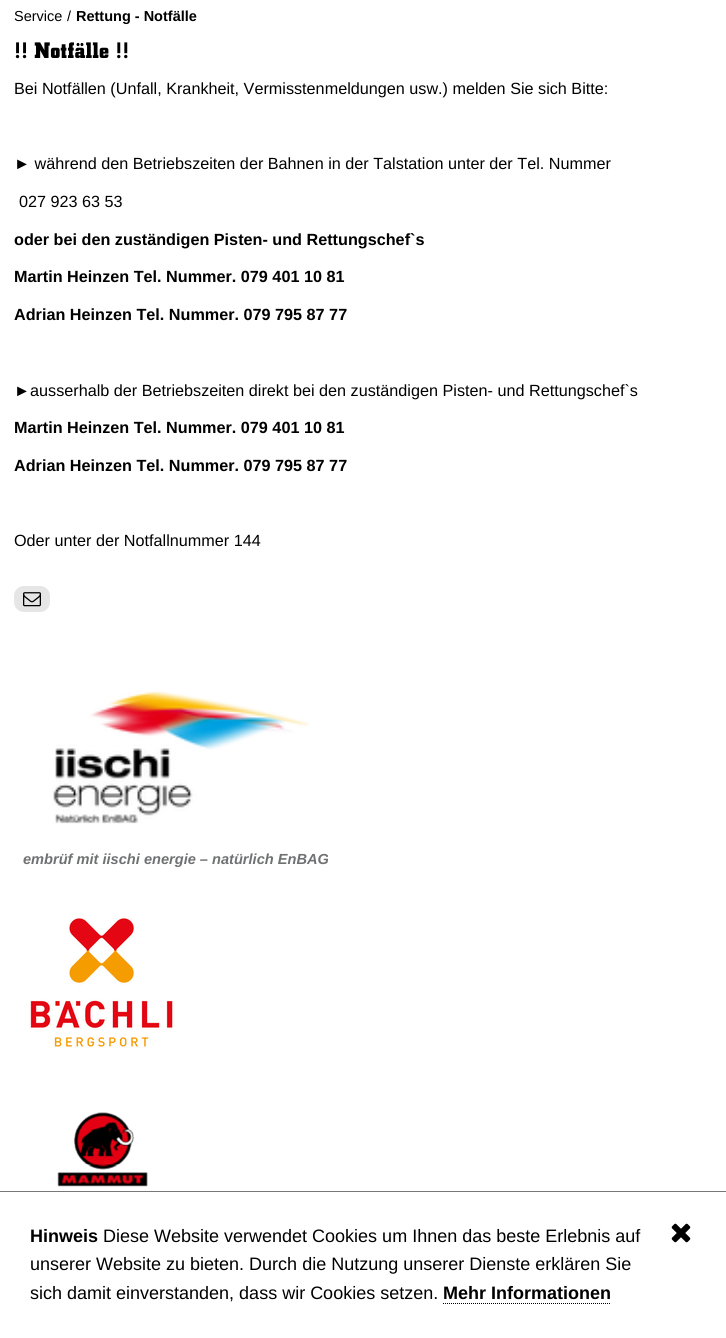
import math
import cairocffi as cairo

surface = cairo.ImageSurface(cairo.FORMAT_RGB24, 726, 1338)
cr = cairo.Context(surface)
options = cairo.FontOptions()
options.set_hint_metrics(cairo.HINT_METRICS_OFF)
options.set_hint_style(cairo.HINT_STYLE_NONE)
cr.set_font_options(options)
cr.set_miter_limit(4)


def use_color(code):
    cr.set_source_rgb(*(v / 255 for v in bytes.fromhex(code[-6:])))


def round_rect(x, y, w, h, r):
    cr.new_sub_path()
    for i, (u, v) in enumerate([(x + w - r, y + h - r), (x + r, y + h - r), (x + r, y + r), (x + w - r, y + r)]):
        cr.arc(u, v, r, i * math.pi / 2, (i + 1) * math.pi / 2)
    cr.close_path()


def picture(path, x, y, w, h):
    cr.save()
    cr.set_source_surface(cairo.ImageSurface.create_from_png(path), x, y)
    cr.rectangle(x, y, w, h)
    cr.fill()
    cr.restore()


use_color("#ffffff")
cr.paint()
cr.select_font_face("Liberation Sans")
cr.set_font_size(14.5)
use_color("#000000")
cr.move_to(14, 21)
cr.show_text("Service")
cr.move_to(67, 21)
cr.show_text("/")
cr.select_font_face("Liberation Sans", cairo.FONT_SLANT_NORMAL, cairo.FONT_WEIGHT_BOLD)
cr.move_to(76, 21)
cr.show_text("Rettung - Notfälle")
cr.select_font_face("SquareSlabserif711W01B", cairo.FONT_SLANT_NORMAL, cairo.FONT_WEIGHT_BOLD)
cr.set_font_size(22.5)
cr.move_to(14, 58)
cr.show_text("!! Notfälle !!")
cr.select_font_face("Liberation Sans")
cr.set_font_size(16.2)
cr.move_to(14, 94)
cr.show_text("Bei Notfällen (Unfall, Krankheit, Vermisstenmeldungen usw.) melden Sie sich Bitte:")
cr.move_to(14, 169)
cr.show_text("► während den Betriebszeiten der Bahnen in der Talstation unter der Tel. Nummer")
cr.move_to(19, 207)
cr.show_text("027 923 63 53")
cr.select_font_face("Liberation Sans", cairo.FONT_SLANT_NORMAL, cairo.FONT_WEIGHT_BOLD)
cr.move_to(14, 245)
cr.show_text("oder bei den zuständigen Pisten- und Rettungschef`s")
cr.move_to(14, 282)
cr.show_text("Martin Heinzen Tel. Nummer. 079 401 10 81")
cr.move_to(14, 320)
cr.show_text("Adrian Heinzen Tel. Nummer. 079 795 87 77")
cr.select_font_face("Liberation Sans")
cr.move_to(14, 396)
cr.show_text("►ausserhalb der Betriebszeiten direkt bei den zuständigen Pisten- und Rettungschef`s")
cr.select_font_face("Liberation Sans", cairo.FONT_SLANT_NORMAL, cairo.FONT_WEIGHT_BOLD)
cr.move_to(14, 433)
cr.show_text("Martin Heinzen Tel. Nummer. 079 401 10 81")
cr.move_to(14, 471)
cr.show_text("Adrian Heinzen Tel. Nummer. 079 795 87 77")
cr.select_font_face("Liberation Sans")
cr.move_to(14, 546)
cr.show_text("Oder unter der Notfallnummer 144")
use_color("#e6e6e6")
round_rect(14, 586, 36, 26, 10)
cr.fill()
picture("img1.png", 23, 592, 18, 15)
picture("img2.png", 53, 690, 256, 134)
cr.select_font_face("Liberation Sans", cairo.FONT_SLANT_ITALIC, cairo.FONT_WEIGHT_BOLD)
cr.set_font_size(14.6)
use_color("#707172")
cr.move_to(23, 864)
cr.show_text("embrüf mit iischi energie – natürlich EnBAG")
picture("img3.png", 29, 916, 146, 133)
picture("img4.png", 57, 1112, 91, 75)
use_color("#777777")
cr.rectangle(0, 1191, 726, 1)
cr.fill()
cr.select_font_face("Liberation Sans", cairo.FONT_SLANT_NORMAL, cairo.FONT_WEIGHT_BOLD)
cr.set_font_size(18)
use_color("#000000")
cr.move_to(30, 1242)
cr.show_text("Hinweis")
cr.select_font_face("Liberation Sans")
cr.move_to(103, 1242)
cr.show_text("Diese Website verwendet Cookies um Ihnen das beste Erlebnis auf")
picture("img5.png", 671, 1223, 20, 20)
cr.move_to(30, 1270)
cr.show_text("unserer Website zu bieten. Durch die Nutzung unserer Dienste erklären Sie")
cr.move_to(30, 1299)
cr.show_text("sich damit einverstanden, dass wir Cookies setzen.")
cr.select_font_face("Liberation Sans", cairo.FONT_SLANT_NORMAL, cairo.FONT_WEIGHT_BOLD)
cr.move_to(443, 1299)
cr.show_text("Mehr Informationen")
cr.new_path()
cr.move_to(443, 1303.5)
cr.line_to(611, 1303.5)
cr.set_line_width(1)
cr.set_dash([1, 1])
cr.stroke()
surface.write_to_png("result.png")
